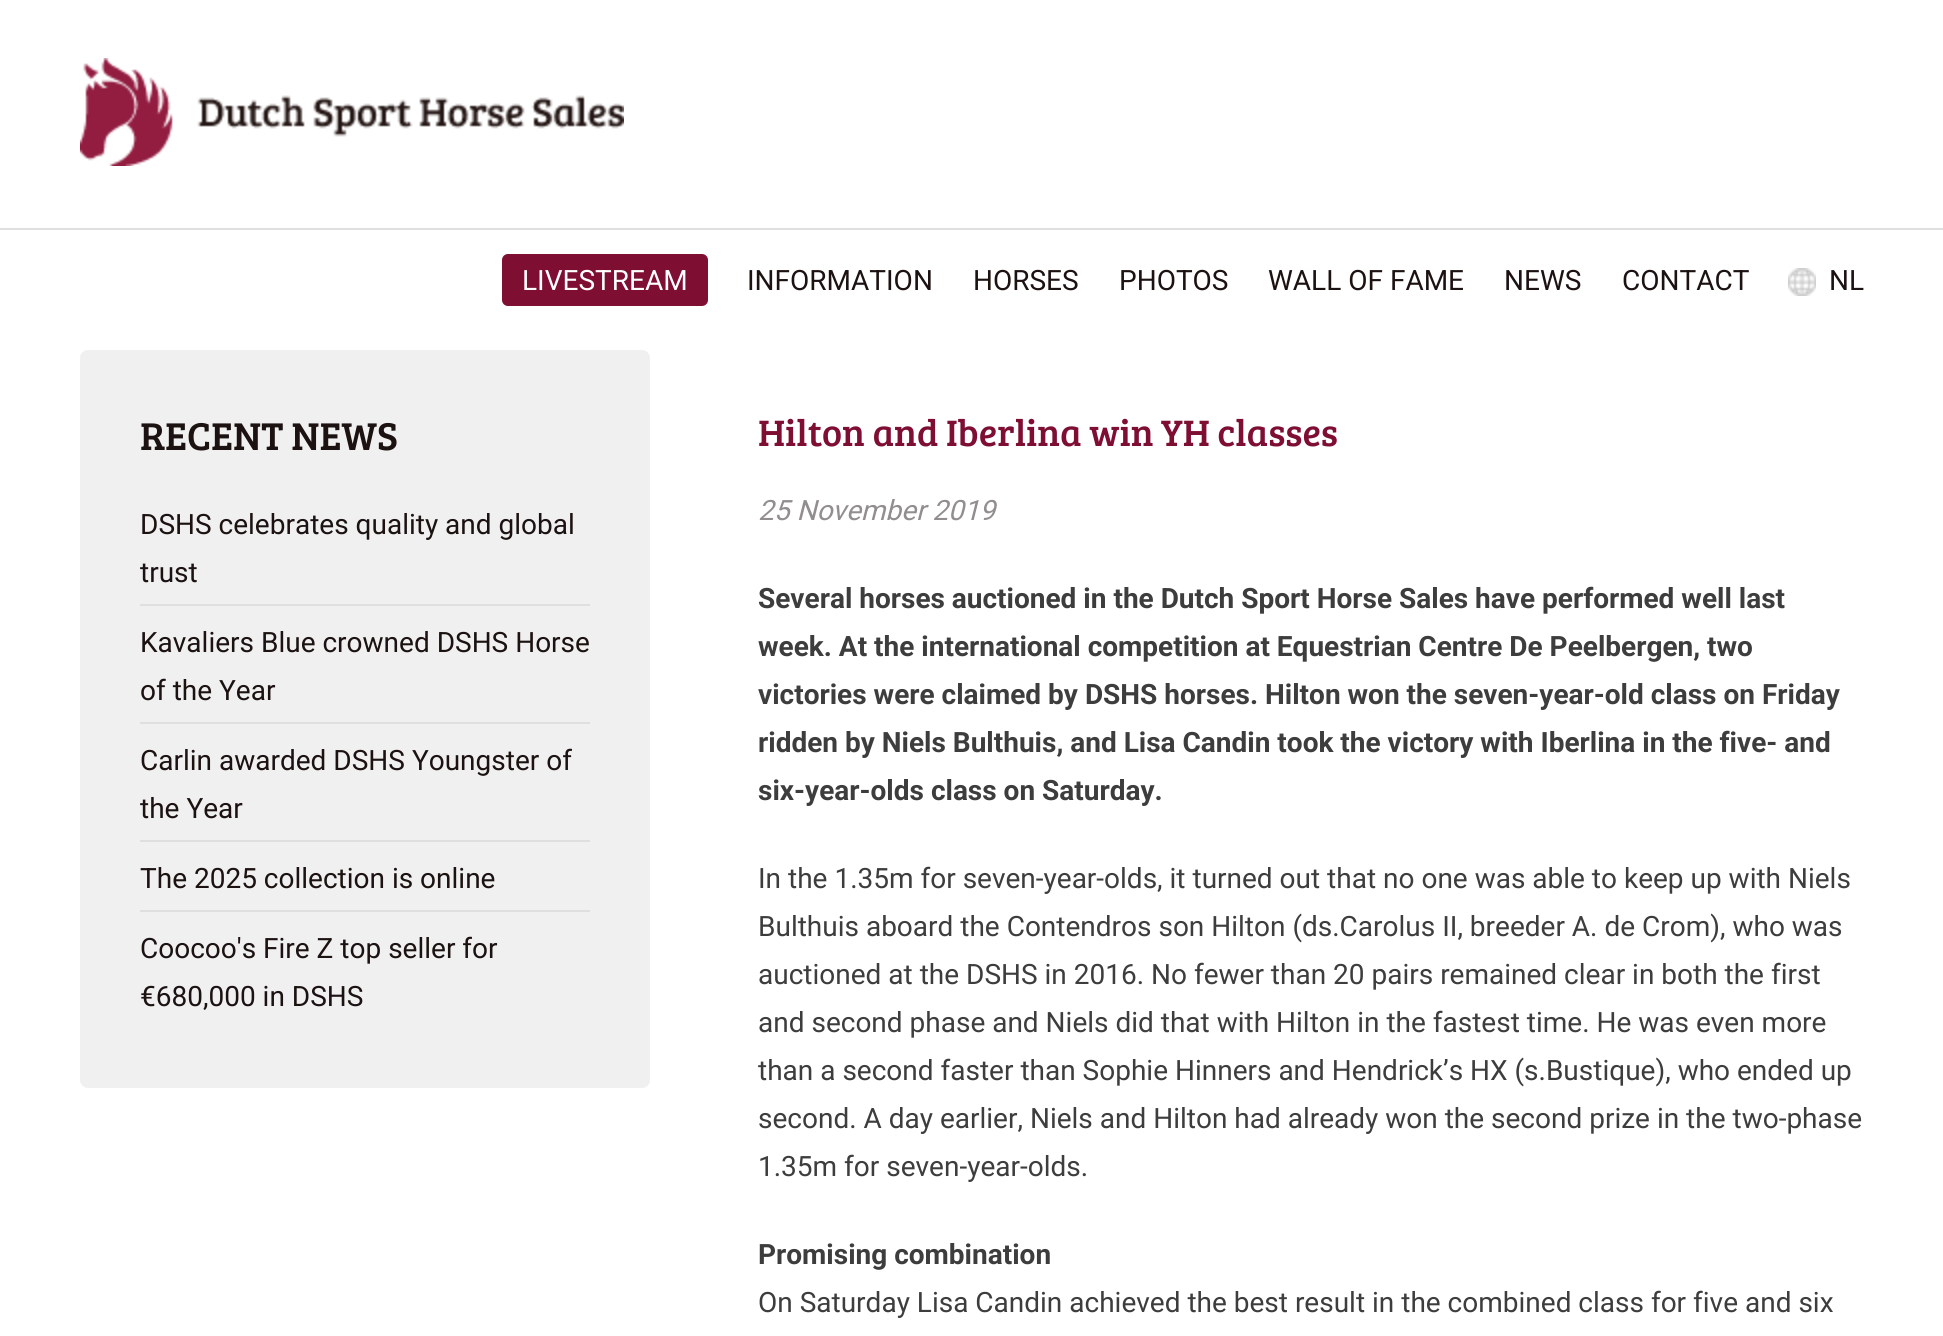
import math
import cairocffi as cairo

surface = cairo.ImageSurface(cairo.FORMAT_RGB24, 1943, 1336)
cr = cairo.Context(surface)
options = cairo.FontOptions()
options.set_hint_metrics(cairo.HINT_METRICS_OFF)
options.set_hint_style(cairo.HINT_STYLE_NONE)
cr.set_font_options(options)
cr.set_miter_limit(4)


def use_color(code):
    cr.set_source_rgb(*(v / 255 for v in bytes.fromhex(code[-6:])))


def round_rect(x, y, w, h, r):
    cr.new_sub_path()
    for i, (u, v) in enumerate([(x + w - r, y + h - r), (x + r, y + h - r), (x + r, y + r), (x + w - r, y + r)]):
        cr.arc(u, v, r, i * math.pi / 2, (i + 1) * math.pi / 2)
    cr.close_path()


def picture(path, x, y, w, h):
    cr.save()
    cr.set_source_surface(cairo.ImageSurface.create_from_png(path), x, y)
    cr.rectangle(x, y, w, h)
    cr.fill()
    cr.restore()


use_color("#ffffff")
cr.paint()
use_color("#e0dfdf")
cr.rectangle(0, 228, 1943, 2)
cr.fill()
picture("img1.png", 80, 58, 544, 108)
use_color("#7e0e32")
round_rect(502, 254, 206, 52, 6)
cr.fill()
cr.select_font_face("Roboto")
cr.set_font_size(28)
use_color("#ffffff")
cr.move_to(522, 290)
cr.show_text("LIVESTREAM")
use_color("#1b1211")
cr.move_to(747, 290)
cr.show_text("INFORMATION")
cr.move_to(973, 290)
cr.show_text("HORSES")
cr.move_to(1119, 290)
cr.show_text("PHOTOS")
cr.move_to(1268, 290)
cr.show_text("WALL OF FAME")
cr.move_to(1504, 290)
cr.show_text("NEWS")
cr.move_to(1622, 290)
cr.show_text("CONTACT")
picture("img2.png", 1788, 268, 28, 28)
cr.move_to(1829, 290)
cr.show_text("NL")
use_color("#f0f0f0")
round_rect(80, 350, 570, 738, 8)
cr.fill()
cr.select_font_face("Bree Serif")
cr.set_font_size(40)
use_color("#1b1211")
cr.move_to(140, 450)
cr.show_text("RECENT NEWS")
use_color("#e0dfdf")
cr.rectangle(140, 604, 450, 2)
cr.fill()
cr.select_font_face("Roboto")
cr.set_font_size(28)
use_color("#1b1211")
cr.move_to(140, 534)
cr.show_text("DSHS celebrates quality and global")
cr.move_to(140, 582)
cr.show_text("trust")
use_color("#e0dfdf")
cr.rectangle(140, 722, 450, 2)
cr.fill()
use_color("#1b1211")
cr.move_to(140, 652)
cr.show_text("Kavaliers Blue crowned DSHS Horse")
cr.move_to(140, 700)
cr.show_text("of the Year")
use_color("#e0dfdf")
cr.rectangle(140, 840, 450, 2)
cr.fill()
use_color("#1b1211")
cr.move_to(140, 770)
cr.show_text("Carlin awarded DSHS Youngster of")
cr.move_to(140, 818)
cr.show_text("the Year")
use_color("#e0dfdf")
cr.rectangle(140, 910, 450, 2)
cr.fill()
use_color("#1b1211")
cr.move_to(140, 888)
cr.show_text("The 2025 collection is online")
cr.move_to(140, 958)
cr.show_text("Coocoo's Fire Z top seller for")
cr.move_to(140, 1006)
cr.show_text("€680,000 in DSHS")
cr.select_font_face("Bree Serif")
cr.set_font_size(38)
use_color("#7e0e32")
cr.move_to(758, 446)
cr.show_text("Hilton and Iberlina win YH classes")
cr.select_font_face("Roboto", cairo.FONT_SLANT_ITALIC)
cr.set_font_size(28)
use_color("#928d8f")
cr.move_to(758, 520)
cr.show_text("25 November 2019")
cr.select_font_face("Roboto", cairo.FONT_SLANT_NORMAL, cairo.FONT_WEIGHT_BOLD)
use_color("#3d3d3d")
cr.move_to(758, 608)
cr.show_text("Several horses auctioned in the Dutch Sport Horse Sales have performed well last")
cr.move_to(758, 656)
cr.show_text("week. At the international competition at Equestrian Centre De Peelbergen, two")
cr.move_to(758, 704)
cr.show_text("victories were claimed by DSHS horses. Hilton won the seven-year-old class on Friday")
cr.move_to(758, 752)
cr.show_text("ridden by Niels Bulthuis, and Lisa Candin took the victory with Iberlina in the five- and")
cr.move_to(758, 800)
cr.show_text("six-year-olds class on Saturday.")
cr.select_font_face("Roboto")
cr.move_to(758, 888)
cr.show_text("In the 1.35m for seven-year-olds, it turned out that no one was able to keep up with Niels")
cr.move_to(758, 936)
cr.show_text("Bulthuis aboard the Contendros son Hilton (ds.Carolus II, breeder A. de Crom), who was")
cr.move_to(758, 984)
cr.show_text("auctioned at the DSHS in 2016. No fewer than 20 pairs remained clear in both the first")
cr.move_to(758, 1032)
cr.show_text("and second phase and Niels did that with Hilton in the fastest time. He was even more")
cr.move_to(758, 1080)
cr.show_text("than a second faster than Sophie Hinners and Hendrick’s HX (s.Bustique), who ended up")
cr.move_to(758, 1128)
cr.show_text("second. A day earlier, Niels and Hilton had already won the second prize in the two-phase")
cr.move_to(758, 1176)
cr.show_text("1.35m for seven-year-olds.")
cr.select_font_face("Roboto", cairo.FONT_SLANT_NORMAL, cairo.FONT_WEIGHT_BOLD)
cr.move_to(758, 1264)
cr.show_text("Promising combination")
cr.select_font_face("Roboto")
cr.move_to(758, 1312)
cr.show_text("On Saturday Lisa Candin achieved the best result in the combined class for five and six")
surface.write_to_png("result.png")
